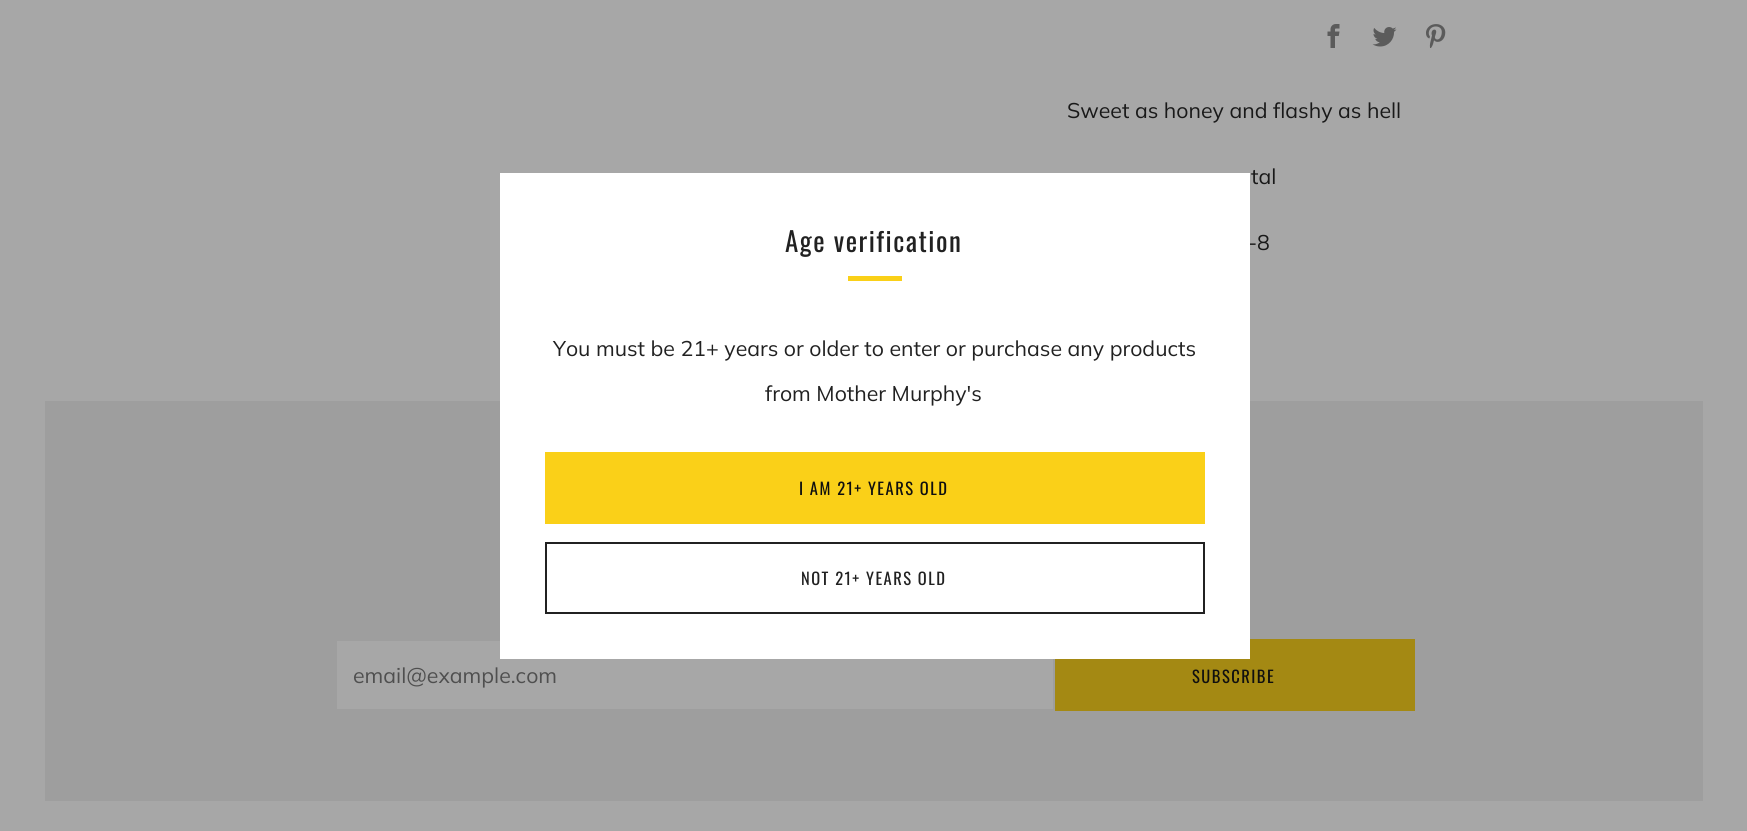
import math
import cairocffi as cairo

surface = cairo.ImageSurface(cairo.FORMAT_RGB24, 1747, 831)
cr = cairo.Context(surface)
options = cairo.FontOptions()
options.set_hint_metrics(cairo.HINT_METRICS_OFF)
options.set_hint_style(cairo.HINT_STYLE_NONE)
cr.set_font_options(options)
cr.set_miter_limit(4)


def use_color(code):
    cr.set_source_rgb(*(v / 255 for v in bytes.fromhex(code[-6:])))


def spaced_text(x, y, s, letter, word):
    cr.move_to(x, y)
    for ch in s:
        cr.show_text(ch)
        cr.rel_move_to(letter + word * (ch == ' '), 0)


def picture(path, x, y, w, h):
    cr.save()
    cr.set_source_surface(cairo.ImageSurface.create_from_png(path), x, y)
    cr.rectangle(x, y, w, h)
    cr.fill()
    cr.restore()


use_color("#a7a7a7")
cr.paint()
picture("img1.png", 1327, 24, 13, 24)
picture("img2.png", 1372, 27, 25, 20)
picture("img3.png", 1426, 24, 20, 24)
cr.select_font_face("Muli")
cr.set_font_size(21.3)
use_color("#191919")
cr.move_to(1067, 118)
cr.show_text("Sweet as honey and flashy as hell")
cr.move_to(1251, 184)
cr.show_text("tal")
cr.move_to(1248, 250)
cr.show_text("-8")
use_color("#9e9e9e")
cr.rectangle(45, 401, 1658, 400)
cr.fill()
use_color("#a7a7a7")
cr.rectangle(337, 641, 716, 68)
cr.fill()
use_color("#4f4f4f")
cr.move_to(353, 683)
cr.show_text("email@example.com")
use_color("#a48913")
cr.rectangle(1055, 639, 360, 72)
cr.fill()
cr.select_font_face("Oswald")
cr.set_font_size(16.5)
use_color("#0f0f0f")
spaced_text(1192, 683, "SUBSCRIBE", 1.5, 0)
use_color("#ffffff")
cr.rectangle(500, 173, 750, 486)
cr.fill()
cr.set_font_size(27)
use_color("#212121")
spaced_text(785, 252, "Age verification", 1.5, 0)
use_color("#fad018")
cr.rectangle(848, 276, 54, 5)
cr.fill()
cr.select_font_face("Muli")
cr.set_font_size(21.3)
use_color("#212121")
cr.move_to(553, 356)
cr.show_text("You must be 21+ years or older to enter or purchase any products")
cr.move_to(765, 401)
cr.show_text("from Mother Murphy's")
use_color("#fad018")
cr.rectangle(545, 452, 660, 72)
cr.fill()
cr.select_font_face("Oswald")
cr.set_font_size(16.5)
use_color("#0f0f0f")
spaced_text(799, 495, "I AM 21+ YEARS OLD", 1.5, 0)
cr.rectangle(546, 543, 658, 70)
use_color("#212121")
cr.stroke()
spaced_text(801, 585, "NOT 21+ YEARS OLD", 1.5, 0)
surface.write_to_png("result.png")
